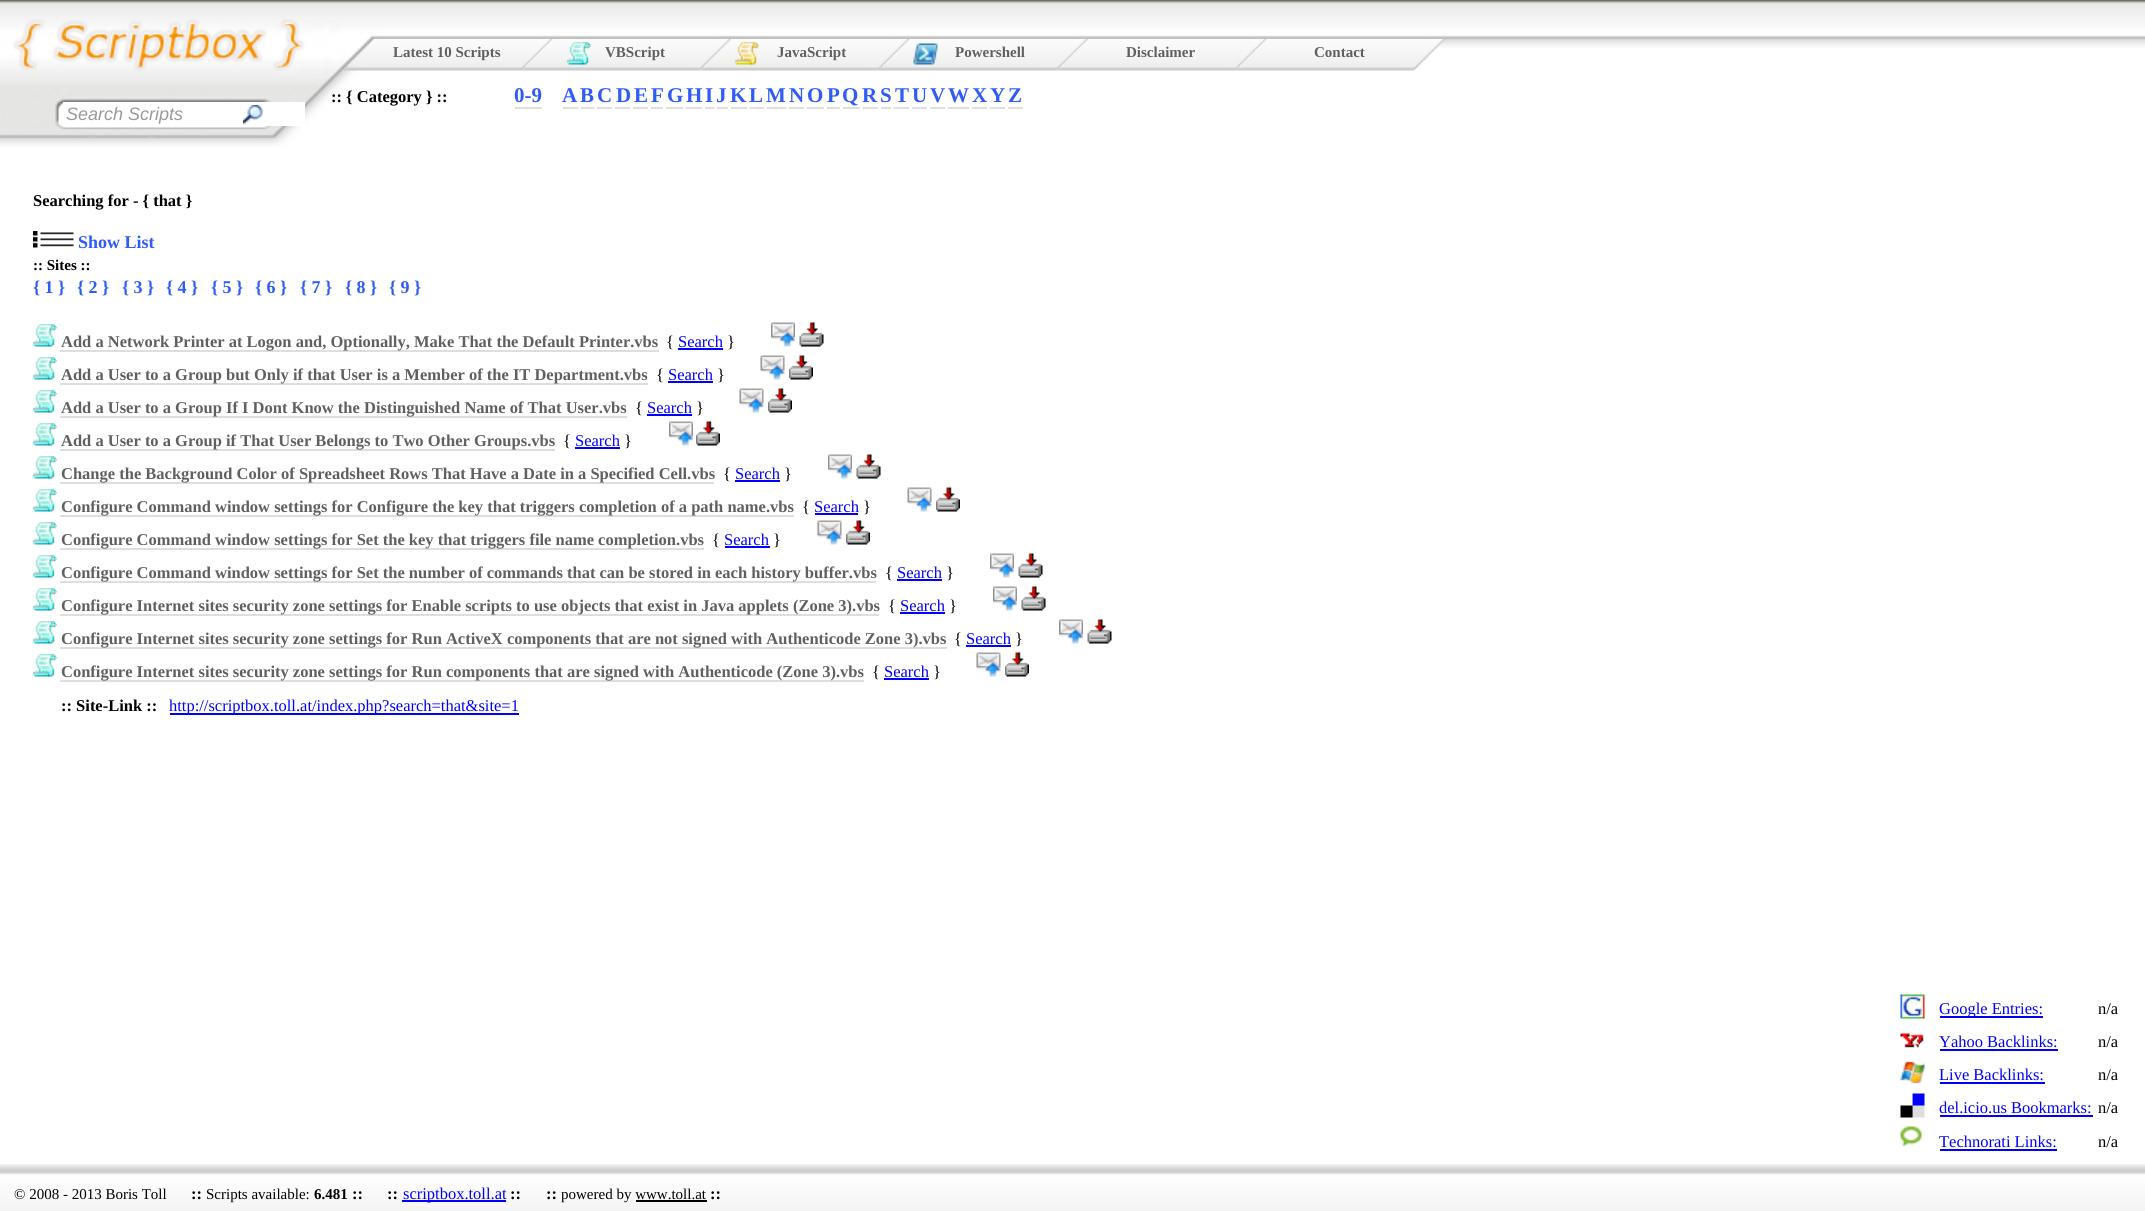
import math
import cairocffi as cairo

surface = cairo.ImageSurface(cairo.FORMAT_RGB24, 2145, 1211)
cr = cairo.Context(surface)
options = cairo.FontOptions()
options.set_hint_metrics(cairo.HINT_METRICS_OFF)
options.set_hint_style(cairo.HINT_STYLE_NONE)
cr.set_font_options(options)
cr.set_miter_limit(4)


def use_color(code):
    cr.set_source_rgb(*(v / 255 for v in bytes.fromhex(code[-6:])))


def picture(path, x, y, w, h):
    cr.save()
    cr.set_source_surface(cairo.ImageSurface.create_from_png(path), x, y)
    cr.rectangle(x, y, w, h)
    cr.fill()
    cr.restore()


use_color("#ffffff")
cr.paint()
picture("img1.png", 0, 0, 2145, 48)
picture("img2.png", 0, 19, 381, 128)
picture("img3.png", 344, 39, 208, 32)
picture("img4.png", 522, 39, 209, 32)
picture("img5.png", 700, 39, 209, 32)
picture("img6.png", 879, 39, 209, 32)
picture("img7.png", 1057, 39, 209, 32)
picture("img8.png", 1236, 39, 209, 32)
cr.select_font_face("Liberation Serif", cairo.FONT_SLANT_NORMAL, cairo.FONT_WEIGHT_BOLD)
cr.set_font_size(15)
use_color("#606060")
cr.move_to(393, 57)
cr.show_text("Latest 10 Scripts")
picture("img9.png", 567, 42, 24, 23)
cr.move_to(605, 57)
cr.show_text("VBScript")
picture("img10.png", 735, 42, 24, 23)
cr.move_to(777, 57)
cr.show_text("JavaScript")
picture("img11.png", 913, 43, 25, 22)
cr.move_to(955, 57)
cr.show_text("Powershell")
cr.move_to(1126, 57)
cr.show_text("Disclaimer")
cr.move_to(1314, 57)
cr.show_text("Contact")
cr.set_font_size(16.5)
use_color("#000000")
cr.move_to(331, 102)
cr.show_text(":: { Category } ::")
cr.set_font_size(21)
use_color("#2e5bfa")
cr.move_to(514, 102)
cr.show_text("0-9")
use_color("#dedede")
cr.rectangle(515, 107, 27, 2)
cr.fill()
use_color("#2e5bfa")
cr.move_to(562, 102)
cr.show_text("A")
use_color("#dedede")
cr.rectangle(563, 107, 15, 2)
cr.fill()
use_color("#2e5bfa")
cr.move_to(580, 102)
cr.show_text("B")
use_color("#dedede")
cr.rectangle(581, 107, 13, 2)
cr.fill()
use_color("#2e5bfa")
cr.move_to(597, 102)
cr.show_text("C")
use_color("#dedede")
cr.rectangle(597, 107, 15, 2)
cr.fill()
use_color("#2e5bfa")
cr.move_to(616, 102)
cr.show_text("D")
use_color("#dedede")
cr.rectangle(615, 107, 15, 2)
cr.fill()
use_color("#2e5bfa")
cr.move_to(634, 102)
cr.show_text("E")
use_color("#dedede")
cr.rectangle(633, 107, 15, 2)
cr.fill()
use_color("#2e5bfa")
cr.move_to(651, 102)
cr.show_text("F")
use_color("#dedede")
cr.rectangle(651, 107, 12, 2)
cr.fill()
use_color("#2e5bfa")
cr.move_to(667, 102)
cr.show_text("G")
use_color("#dedede")
cr.rectangle(666, 107, 17, 2)
cr.fill()
use_color("#2e5bfa")
cr.move_to(686, 102)
cr.show_text("H")
use_color("#dedede")
cr.rectangle(686, 107, 16, 2)
cr.fill()
use_color("#2e5bfa")
cr.move_to(705, 102)
cr.show_text("I")
use_color("#dedede")
cr.rectangle(705, 107, 9, 2)
cr.fill()
use_color("#2e5bfa")
cr.move_to(716, 102)
cr.show_text("J")
use_color("#dedede")
cr.rectangle(717, 107, 11, 2)
cr.fill()
use_color("#2e5bfa")
cr.move_to(730, 102)
cr.show_text("K")
use_color("#dedede")
cr.rectangle(731, 107, 16, 2)
cr.fill()
use_color("#2e5bfa")
cr.move_to(749, 102)
cr.show_text("L")
use_color("#dedede")
cr.rectangle(750, 107, 14, 2)
cr.fill()
use_color("#2e5bfa")
cr.move_to(766, 102)
cr.show_text("M")
use_color("#dedede")
cr.rectangle(767, 107, 19, 2)
cr.fill()
use_color("#2e5bfa")
cr.move_to(789, 102)
cr.show_text("N")
use_color("#dedede")
cr.rectangle(789, 107, 15, 2)
cr.fill()
use_color("#2e5bfa")
cr.move_to(807, 102)
cr.show_text("O")
use_color("#dedede")
cr.rectangle(807, 107, 17, 2)
cr.fill()
use_color("#2e5bfa")
cr.move_to(827, 102)
cr.show_text("P")
use_color("#dedede")
cr.rectangle(827, 107, 13, 2)
cr.fill()
use_color("#2e5bfa")
cr.move_to(842, 102)
cr.show_text("Q")
use_color("#dedede")
cr.rectangle(843, 107, 17, 2)
cr.fill()
use_color("#2e5bfa")
cr.move_to(862, 102)
cr.show_text("R")
use_color("#dedede")
cr.rectangle(863, 107, 15, 2)
cr.fill()
use_color("#2e5bfa")
cr.move_to(880, 102)
cr.show_text("S")
use_color("#dedede")
cr.rectangle(881, 107, 10, 2)
cr.fill()
use_color("#2e5bfa")
cr.move_to(895, 102)
cr.show_text("T")
use_color("#dedede")
cr.rectangle(894, 107, 15, 2)
cr.fill()
use_color("#2e5bfa")
cr.move_to(912, 102)
cr.show_text("U")
use_color("#dedede")
cr.rectangle(912, 107, 15, 2)
cr.fill()
use_color("#2e5bfa")
cr.move_to(930, 102)
cr.show_text("V")
use_color("#dedede")
cr.rectangle(930, 107, 15, 2)
cr.fill()
use_color("#2e5bfa")
cr.move_to(948, 102)
cr.show_text("W")
use_color("#dedede")
cr.rectangle(948, 107, 21, 2)
cr.fill()
use_color("#2e5bfa")
cr.move_to(972, 102)
cr.show_text("X")
use_color("#dedede")
cr.rectangle(972, 107, 15, 2)
cr.fill()
use_color("#2e5bfa")
cr.move_to(990, 102)
cr.show_text("Y")
use_color("#dedede")
cr.rectangle(990, 107, 15, 2)
cr.fill()
use_color("#2e5bfa")
cr.move_to(1008, 102)
cr.show_text("Z")
use_color("#dedede")
cr.rectangle(1008, 107, 15, 2)
cr.fill()
use_color("#ffffff")
cr.rectangle(63, 102, 242, 24)
cr.fill()
cr.select_font_face("Liberation Sans", cairo.FONT_SLANT_ITALIC)
cr.set_font_size(18)
use_color("#9a999a")
cr.move_to(66, 120)
cr.show_text("Search Scripts")
picture("img12.png", 243, 105, 20, 20)
cr.select_font_face("Liberation Serif", cairo.FONT_SLANT_NORMAL, cairo.FONT_WEIGHT_BOLD)
cr.set_font_size(16.5)
use_color("#000000")
cr.move_to(33, 206)
cr.show_text("Searching for - { that }")
picture("img13.png", 33, 231, 41, 17)
cr.set_font_size(18)
use_color("#2e5bfa")
cr.move_to(78, 248)
cr.show_text("Show List")
cr.set_font_size(15)
use_color("#000000")
cr.move_to(33, 270)
cr.show_text(":: Sites ::")
cr.set_font_size(18)
use_color("#2e5bfa")
cr.move_to(33, 293)
cr.show_text("{ 1 }")
cr.move_to(77, 293)
cr.show_text("{ 2 }")
cr.move_to(122, 293)
cr.show_text("{ 3 }")
cr.move_to(166, 293)
cr.show_text("{ 4 }")
cr.move_to(211, 293)
cr.show_text("{ 5 }")
cr.move_to(255, 293)
cr.show_text("{ 6 }")
cr.move_to(300, 293)
cr.show_text("{ 7 }")
cr.move_to(345, 293)
cr.show_text("{ 8 }")
cr.move_to(389, 293)
cr.show_text("{ 9 }")
picture("img14.png", 33, 324, 24, 23)
use_color("#dedede")
cr.rectangle(60, 350, 599, 2)
cr.fill()
cr.set_font_size(16.5)
use_color("#606060")
cr.move_to(61, 347)
cr.show_text("Add a Network Printer at Logon and, Optionally, Make That the Default Printer.vbs")
cr.select_font_face("Liberation Serif")
use_color("#000000")
cr.move_to(666, 347)
cr.show_text("{")
use_color("#0000ff")
cr.move_to(678, 347)
cr.show_text("Search")
cr.rectangle(678, 348, 45, 2)
cr.fill()
use_color("#000000")
cr.move_to(727, 347)
cr.show_text("}")
picture("img15.png", 771, 322, 24, 25)
picture("img16.png", 799, 322, 25, 25)
picture("img14.png", 33, 357, 24, 23)
use_color("#dedede")
cr.rectangle(60, 383, 588, 2)
cr.fill()
cr.select_font_face("Liberation Serif", cairo.FONT_SLANT_NORMAL, cairo.FONT_WEIGHT_BOLD)
use_color("#606060")
cr.move_to(61, 380)
cr.show_text("Add a User to a Group but Only if that User is a Member of the IT Department.vbs")
cr.select_font_face("Liberation Serif")
use_color("#000000")
cr.move_to(656, 380)
cr.show_text("{")
use_color("#0000ff")
cr.move_to(668, 380)
cr.show_text("Search")
cr.rectangle(668, 381, 45, 2)
cr.fill()
use_color("#000000")
cr.move_to(717, 380)
cr.show_text("}")
picture("img17.png", 760, 355, 25, 25)
picture("img18.png", 789, 355, 24, 25)
picture("img14.png", 33, 390, 24, 23)
use_color("#dedede")
cr.rectangle(60, 416, 567, 2)
cr.fill()
cr.select_font_face("Liberation Serif", cairo.FONT_SLANT_NORMAL, cairo.FONT_WEIGHT_BOLD)
use_color("#606060")
cr.move_to(61, 413)
cr.show_text("Add a User to a Group If I Dont Know the Distinguished Name of That User.vbs")
cr.select_font_face("Liberation Serif")
use_color("#000000")
cr.move_to(635, 413)
cr.show_text("{")
use_color("#0000ff")
cr.move_to(647, 413)
cr.show_text("Search")
cr.rectangle(647, 414, 45, 2)
cr.fill()
use_color("#000000")
cr.move_to(696, 413)
cr.show_text("}")
picture("img19.png", 739, 388, 25, 25)
picture("img18.png", 768, 388, 24, 25)
picture("img14.png", 33, 423, 24, 23)
use_color("#dedede")
cr.rectangle(60, 449, 495, 2)
cr.fill()
cr.select_font_face("Liberation Serif", cairo.FONT_SLANT_NORMAL, cairo.FONT_WEIGHT_BOLD)
use_color("#606060")
cr.move_to(61, 446)
cr.show_text("Add a User to a Group if That User Belongs to Two Other Groups.vbs")
cr.select_font_face("Liberation Serif")
use_color("#000000")
cr.move_to(563, 446)
cr.show_text("{")
use_color("#0000ff")
cr.move_to(575, 446)
cr.show_text("Search")
cr.rectangle(575, 447, 45, 2)
cr.fill()
use_color("#000000")
cr.move_to(624, 446)
cr.show_text("}")
picture("img15.png", 669, 421, 24, 25)
picture("img18.png", 696, 421, 24, 25)
picture("img14.png", 33, 456, 24, 23)
use_color("#dedede")
cr.rectangle(60, 482, 654, 2)
cr.fill()
cr.select_font_face("Liberation Serif", cairo.FONT_SLANT_NORMAL, cairo.FONT_WEIGHT_BOLD)
use_color("#606060")
cr.move_to(61, 479)
cr.show_text("Change the Background Color of Spreadsheet Rows That Have a Date in a Specified Cell.vbs")
cr.select_font_face("Liberation Serif")
use_color("#000000")
cr.move_to(723, 479)
cr.show_text("{")
use_color("#0000ff")
cr.move_to(735, 479)
cr.show_text("Search")
cr.rectangle(735, 480, 45, 2)
cr.fill()
use_color("#000000")
cr.move_to(784, 479)
cr.show_text("}")
picture("img15.png", 828, 454, 24, 25)
picture("img16.png", 856, 454, 25, 25)
picture("img14.png", 33, 489, 24, 23)
use_color("#dedede")
cr.rectangle(60, 515, 734, 2)
cr.fill()
cr.select_font_face("Liberation Serif", cairo.FONT_SLANT_NORMAL, cairo.FONT_WEIGHT_BOLD)
use_color("#606060")
cr.move_to(61, 512)
cr.show_text("Configure Command window settings for Configure the key that triggers completion of a path name.vbs")
cr.select_font_face("Liberation Serif")
use_color("#000000")
cr.move_to(802, 512)
cr.show_text("{")
use_color("#0000ff")
cr.move_to(814, 512)
cr.show_text("Search")
cr.rectangle(815, 513, 43, 2)
cr.fill()
use_color("#000000")
cr.move_to(863, 512)
cr.show_text("}")
picture("img17.png", 907, 487, 25, 25)
picture("img18.png", 936, 487, 24, 25)
picture("img14.png", 33, 522, 24, 23)
use_color("#dedede")
cr.rectangle(60, 548, 644, 2)
cr.fill()
cr.select_font_face("Liberation Serif", cairo.FONT_SLANT_NORMAL, cairo.FONT_WEIGHT_BOLD)
use_color("#606060")
cr.move_to(61, 545)
cr.show_text("Configure Command window settings for Set the key that triggers file name completion.vbs")
cr.select_font_face("Liberation Serif")
use_color("#000000")
cr.move_to(712, 545)
cr.show_text("{")
use_color("#0000ff")
cr.move_to(724, 545)
cr.show_text("Search")
cr.rectangle(725, 546, 45, 2)
cr.fill()
use_color("#000000")
cr.move_to(773, 545)
cr.show_text("}")
picture("img17.png", 817, 520, 25, 25)
picture("img18.png", 846, 520, 24, 25)
picture("img14.png", 33, 555, 24, 23)
use_color("#dedede")
cr.rectangle(60, 581, 816, 2)
cr.fill()
cr.select_font_face("Liberation Serif", cairo.FONT_SLANT_NORMAL, cairo.FONT_WEIGHT_BOLD)
use_color("#606060")
cr.move_to(61, 578)
cr.show_text("Configure Command window settings for Set the number of commands that can be stored in each history buffer.vbs")
cr.select_font_face("Liberation Serif")
use_color("#000000")
cr.move_to(885, 578)
cr.show_text("{")
use_color("#0000ff")
cr.move_to(897, 578)
cr.show_text("Search")
cr.rectangle(897, 579, 45, 2)
cr.fill()
use_color("#000000")
cr.move_to(946, 578)
cr.show_text("}")
picture("img15.png", 990, 553, 24, 25)
picture("img16.png", 1018, 553, 25, 25)
picture("img14.png", 33, 588, 24, 23)
use_color("#dedede")
cr.rectangle(60, 614, 819, 2)
cr.fill()
cr.select_font_face("Liberation Serif", cairo.FONT_SLANT_NORMAL, cairo.FONT_WEIGHT_BOLD)
use_color("#606060")
cr.move_to(61, 611)
cr.show_text("Configure Internet sites security zone settings for Enable scripts to use objects that exist in Java applets (Zone 3).vbs")
cr.select_font_face("Liberation Serif")
use_color("#000000")
cr.move_to(888, 611)
cr.show_text("{")
use_color("#0000ff")
cr.move_to(900, 611)
cr.show_text("Search")
cr.rectangle(900, 612, 45, 2)
cr.fill()
use_color("#000000")
cr.move_to(949, 611)
cr.show_text("}")
picture("img15.png", 993, 586, 24, 25)
picture("img16.png", 1021, 586, 25, 25)
picture("img14.png", 33, 621, 24, 23)
use_color("#dedede")
cr.rectangle(60, 647, 887, 2)
cr.fill()
cr.select_font_face("Liberation Serif", cairo.FONT_SLANT_NORMAL, cairo.FONT_WEIGHT_BOLD)
use_color("#606060")
cr.move_to(61, 644)
cr.show_text("Configure Internet sites security zone settings for Run ActiveX components that are not signed with Authenticode Zone 3).vbs")
cr.select_font_face("Liberation Serif")
use_color("#000000")
cr.move_to(954, 644)
cr.show_text("{")
use_color("#0000ff")
cr.move_to(966, 644)
cr.show_text("Search")
cr.rectangle(966, 645, 45, 2)
cr.fill()
use_color("#000000")
cr.move_to(1015, 644)
cr.show_text("}")
picture("img20.png", 1059, 619, 24, 25)
picture("img16.png", 1087, 619, 25, 25)
picture("img14.png", 33, 654, 24, 23)
use_color("#dedede")
cr.rectangle(60, 680, 804, 2)
cr.fill()
cr.select_font_face("Liberation Serif", cairo.FONT_SLANT_NORMAL, cairo.FONT_WEIGHT_BOLD)
use_color("#606060")
cr.move_to(61, 677)
cr.show_text("Configure Internet sites security zone settings for Run components that are signed with Authenticode (Zone 3).vbs")
cr.select_font_face("Liberation Serif")
use_color("#000000")
cr.move_to(872, 677)
cr.show_text("{")
use_color("#0000ff")
cr.move_to(884, 677)
cr.show_text("Search")
cr.rectangle(884, 678, 45, 2)
cr.fill()
use_color("#000000")
cr.move_to(933, 677)
cr.show_text("}")
picture("img17.png", 976, 652, 25, 25)
picture("img18.png", 1005, 652, 24, 25)
cr.select_font_face("Liberation Serif", cairo.FONT_SLANT_NORMAL, cairo.FONT_WEIGHT_BOLD)
cr.move_to(61, 711)
cr.show_text(":: Site-Link ::")
use_color("#0000ff")
cr.rectangle(170, 713, 349, 2)
cr.fill()
cr.select_font_face("Liberation Serif")
cr.move_to(169, 711)
cr.show_text("http://scriptbox.toll.at/index.php?search=that&site=1")
picture("img21.png", 0, 1164, 2145, 47)
cr.set_font_size(15)
use_color("#000000")
cr.move_to(14, 1199)
cr.show_text("© 2008 - 2013 Boris Toll")
cr.select_font_face("Liberation Serif", cairo.FONT_SLANT_NORMAL, cairo.FONT_WEIGHT_BOLD)
cr.set_font_size(16.5)
cr.move_to(191, 1199)
cr.show_text("::")
cr.select_font_face("Liberation Serif")
cr.set_font_size(15)
cr.move_to(206, 1199)
cr.show_text("Scripts available:")
cr.select_font_face("Liberation Serif", cairo.FONT_SLANT_NORMAL, cairo.FONT_WEIGHT_BOLD)
cr.move_to(314, 1199)
cr.show_text("6.481")
cr.set_font_size(16.5)
cr.move_to(352, 1199)
cr.show_text("::")
cr.move_to(387, 1199)
cr.show_text("::")
use_color("#0000ff")
cr.rectangle(402, 1200, 104, 2)
cr.fill()
cr.select_font_face("Liberation Serif")
cr.move_to(403, 1199)
cr.show_text("scriptbox.toll.at")
cr.select_font_face("Liberation Serif", cairo.FONT_SLANT_NORMAL, cairo.FONT_WEIGHT_BOLD)
use_color("#000000")
cr.move_to(510, 1199)
cr.show_text("::")
cr.move_to(546, 1199)
cr.show_text("::")
cr.select_font_face("Liberation Serif")
cr.set_font_size(15)
cr.move_to(561, 1199)
cr.show_text("powered by www.toll.at")
cr.rectangle(636, 1200, 71, 2)
cr.fill()
cr.select_font_face("Liberation Serif", cairo.FONT_SLANT_NORMAL, cairo.FONT_WEIGHT_BOLD)
cr.set_font_size(16.5)
cr.move_to(710, 1199)
cr.show_text("::")
picture("img22.png", 1900, 994, 25, 25)
use_color("#0000ff")
cr.rectangle(1940, 1016, 103, 2)
cr.fill()
cr.select_font_face("Liberation Serif")
cr.move_to(1939, 1014)
cr.show_text("Google Entries:")
use_color("#000000")
cr.move_to(2098, 1014)
cr.show_text("n/a")
picture("img23.png", 1900, 1033, 24, 15)
use_color("#0000ff")
cr.move_to(1939, 1047)
cr.show_text("Yahoo Backlinks:")
cr.rectangle(1940, 1049, 118, 2)
cr.fill()
use_color("#000000")
cr.move_to(2098, 1047)
cr.show_text("n/a")
picture("img24.png", 1900, 1061, 25, 23)
use_color("#0000ff")
cr.move_to(1939, 1080)
cr.show_text("Live Backlinks:")
cr.rectangle(1940, 1082, 105, 2)
cr.fill()
use_color("#000000")
cr.move_to(2098, 1080)
cr.show_text("n/a")
picture("img25.png", 1900, 1093, 25, 25)
use_color("#0000ff")
cr.move_to(1939, 1113)
cr.show_text("del.icio.us Bookmarks:")
cr.rectangle(1940, 1115, 153, 2)
cr.fill()
use_color("#000000")
cr.move_to(2098, 1113)
cr.show_text("n/a")
picture("img26.png", 1900, 1126, 22, 21)
use_color("#0000ff")
cr.move_to(1939, 1147)
cr.show_text("Technorati Links:")
cr.rectangle(1940, 1149, 117, 2)
cr.fill()
use_color("#000000")
cr.move_to(2098, 1147)
cr.show_text("n/a")
surface.write_to_png("result.png")
